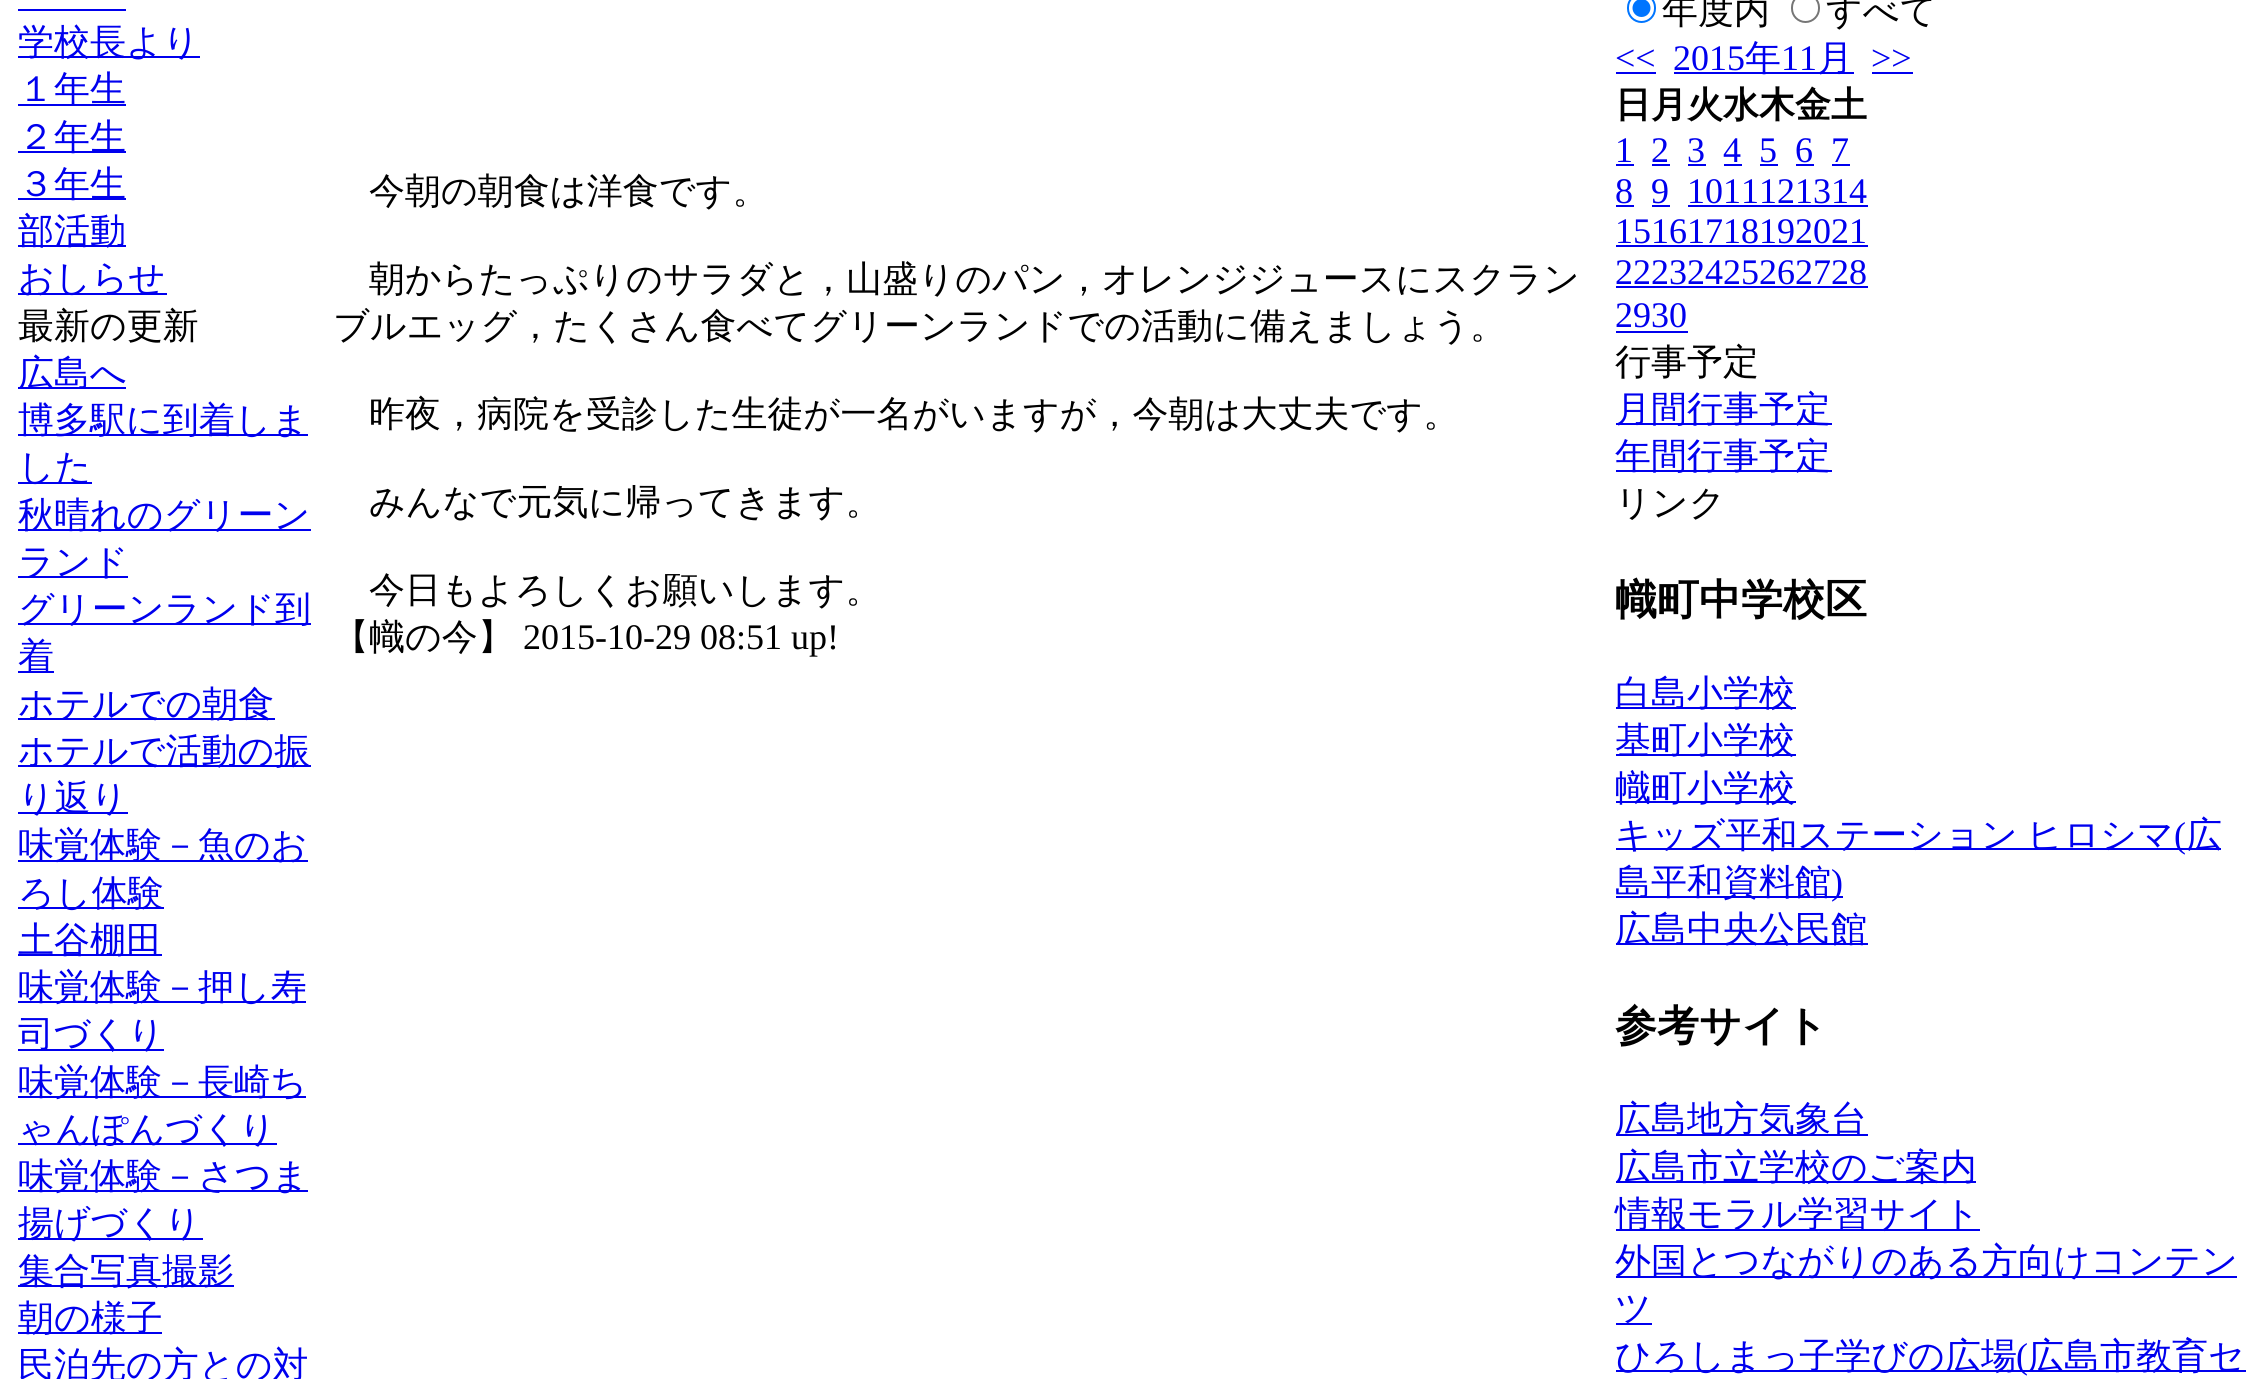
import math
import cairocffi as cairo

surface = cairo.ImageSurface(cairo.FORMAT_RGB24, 2262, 1379)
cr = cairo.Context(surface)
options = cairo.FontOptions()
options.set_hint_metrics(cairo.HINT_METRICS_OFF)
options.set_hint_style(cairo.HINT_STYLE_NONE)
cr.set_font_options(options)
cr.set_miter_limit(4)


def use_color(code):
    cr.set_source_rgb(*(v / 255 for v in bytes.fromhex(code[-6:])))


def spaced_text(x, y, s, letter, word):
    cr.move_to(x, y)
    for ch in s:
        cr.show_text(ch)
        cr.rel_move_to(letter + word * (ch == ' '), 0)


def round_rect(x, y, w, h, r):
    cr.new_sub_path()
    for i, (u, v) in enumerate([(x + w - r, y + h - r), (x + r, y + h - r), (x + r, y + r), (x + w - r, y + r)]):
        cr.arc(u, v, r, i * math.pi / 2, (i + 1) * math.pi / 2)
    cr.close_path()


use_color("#ffffff")
cr.paint()
use_color("#0000ee")
cr.rectangle(18, 9, 108, 2)
cr.fill()
cr.rectangle(18, 56, 182, 2)
cr.fill()
cr.select_font_face("WenQuanYi Zen Hei Medium")
cr.set_font_size(36)
cr.move_to(18, 54)
cr.show_text("学校長より")
cr.rectangle(18, 104, 108, 2)
cr.fill()
cr.move_to(18, 101)
cr.show_text("１年生")
cr.rectangle(18, 151, 108, 2)
cr.fill()
cr.move_to(18, 149)
cr.show_text("２年生")
cr.rectangle(18, 198, 108, 2)
cr.fill()
cr.move_to(18, 196)
cr.show_text("３年生")
cr.rectangle(18, 245, 108, 2)
cr.fill()
cr.move_to(18, 243)
cr.show_text("部活動")
cr.rectangle(18, 293, 149, 2)
cr.fill()
cr.move_to(18, 290)
cr.show_text("おしらせ")
use_color("#000000")
cr.move_to(18, 338)
cr.show_text("最新の更新")
use_color("#0000ee")
cr.rectangle(18, 387, 108, 2)
cr.fill()
cr.move_to(18, 385)
cr.show_text("広島へ")
cr.rectangle(18, 434, 290, 2)
cr.fill()
cr.move_to(18, 432)
cr.show_text("博多駅に到着しま")
cr.rectangle(18, 482, 74, 2)
cr.fill()
cr.move_to(18, 479)
cr.show_text("した")
cr.rectangle(18, 529, 293, 2)
cr.fill()
cr.move_to(18, 527)
cr.show_text("秋晴れのグリーン")
cr.rectangle(18, 576, 110, 2)
cr.fill()
cr.move_to(18, 574)
cr.show_text("ランド")
cr.rectangle(18, 623, 293, 2)
cr.fill()
cr.move_to(18, 621)
cr.show_text("グリーンランド到")
cr.rectangle(18, 671, 36, 2)
cr.fill()
cr.move_to(18, 668)
cr.show_text("着")
cr.rectangle(18, 718, 257, 2)
cr.fill()
cr.move_to(18, 716)
cr.show_text("ホテルでの朝食")
cr.rectangle(18, 765, 293, 2)
cr.fill()
cr.move_to(18, 763)
cr.show_text("ホテルで活動の振")
cr.rectangle(18, 812, 110, 2)
cr.fill()
cr.move_to(18, 810)
cr.show_text("り返り")
cr.rectangle(18, 860, 290, 2)
cr.fill()
cr.move_to(18, 857)
cr.show_text("味覚体験－魚のお")
cr.rectangle(18, 907, 146, 2)
cr.fill()
cr.move_to(18, 905)
cr.show_text("ろし体験")
cr.rectangle(18, 954, 144, 2)
cr.fill()
cr.move_to(18, 952)
cr.show_text("土谷棚田")
cr.rectangle(18, 1001, 288, 2)
cr.fill()
cr.move_to(18, 999)
cr.show_text("味覚体験－押し寿")
cr.rectangle(18, 1049, 146, 2)
cr.fill()
cr.move_to(18, 1046)
cr.show_text("司づくり")
cr.rectangle(18, 1096, 288, 2)
cr.fill()
cr.move_to(18, 1094)
cr.show_text("味覚体験－長崎ち")
cr.rectangle(18, 1143, 259, 2)
cr.fill()
cr.move_to(18, 1141)
cr.show_text("ゃんぽんづくり")
cr.rectangle(18, 1190, 290, 2)
cr.fill()
cr.move_to(18, 1188)
cr.show_text("味覚体験－さつま")
cr.rectangle(18, 1238, 185, 2)
cr.fill()
cr.move_to(18, 1235)
cr.show_text("揚げづくり")
cr.rectangle(18, 1285, 216, 2)
cr.fill()
cr.move_to(18, 1283)
cr.show_text("集合写真撮影")
cr.rectangle(18, 1332, 144, 2)
cr.fill()
cr.move_to(18, 1330)
cr.show_text("朝の様子")
cr.move_to(18, 1377)
cr.show_text("民泊先の方との対")
use_color("#000000")
cr.move_to(369, 203)
cr.show_text("今朝の朝食は洋食です。")
cr.move_to(369, 291)
cr.show_text("朝からたっぷりのサラダと，山盛りのパン，オレンジジュースにスクラン")
cr.move_to(333, 338)
cr.show_text("ブルエッグ，たくさん食べてグリーンランドでの活動に備えましょう。")
cr.move_to(369, 426)
cr.show_text("昨夜，病院を受診した生徒が一名がいますが，今朝は大丈夫です。")
cr.move_to(369, 514)
cr.show_text("みんなで元気に帰ってきます。")
cr.move_to(369, 602)
cr.show_text("今日もよろしくお願いします。")
cr.move_to(333, 649)
cr.show_text("【幟の今】")
cr.select_font_face("Liberation Serif")
cr.move_to(523, 649)
cr.show_text("2015-10-29 08:51 up!")
round_rect(1628, -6, 27, 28, 13.5)
use_color("#0075ff")
cr.stroke()
cr.arc(1641.5, 8, 9, 0, 2 * math.pi)
cr.fill()
cr.select_font_face("WenQuanYi Zen Hei Medium")
use_color("#000000")
cr.move_to(1662, 23)
cr.show_text("年度内")
round_rect(1792, -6, 27, 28, 13.5)
use_color("#767676")
cr.stroke()
use_color("#000000")
cr.move_to(1826, 23)
cr.show_text("すべて")
cr.select_font_face("Liberation Serif")
use_color("#0000ee")
cr.move_to(1615, 70)
cr.show_text("<<")
cr.rectangle(1616, 72, 40, 2)
cr.fill()
cr.move_to(1673, 70)
cr.show_text("2015")
cr.rectangle(1674, 72, 180, 2)
cr.fill()
cr.select_font_face("WenQuanYi Zen Hei Medium")
cr.move_to(1745, 70)
cr.show_text("年")
cr.select_font_face("Liberation Serif")
cr.move_to(1781, 70)
cr.show_text("11")
cr.select_font_face("WenQuanYi Zen Hei Medium")
cr.move_to(1817, 70)
cr.show_text("月")
cr.select_font_face("Liberation Serif")
cr.move_to(1871, 70)
cr.show_text(">>")
cr.rectangle(1872, 72, 41, 2)
cr.fill()
cr.select_font_face("WenQuanYi Zen Hei", cairo.FONT_SLANT_NORMAL, cairo.FONT_WEIGHT_BOLD)
use_color("#000000")
cr.move_to(1615, 117)
cr.show_text("日月火水木金土")
cr.select_font_face("Liberation Serif")
use_color("#0000ee")
cr.move_to(1615, 162)
cr.show_text("1")
cr.rectangle(1616, 164, 18, 2)
cr.fill()
cr.move_to(1651, 162)
cr.show_text("2")
cr.rectangle(1652, 164, 18, 2)
cr.fill()
cr.move_to(1687, 162)
cr.show_text("3")
cr.rectangle(1688, 164, 18, 2)
cr.fill()
cr.move_to(1723, 162)
cr.show_text("4")
cr.rectangle(1724, 164, 18, 2)
cr.fill()
cr.move_to(1759, 162)
cr.show_text("5")
cr.rectangle(1760, 164, 18, 2)
cr.fill()
cr.move_to(1795, 162)
cr.show_text("6")
cr.rectangle(1796, 164, 18, 2)
cr.fill()
cr.move_to(1831, 162)
cr.show_text("7")
cr.rectangle(1832, 164, 18, 2)
cr.fill()
cr.move_to(1615, 203)
cr.show_text("8")
cr.rectangle(1616, 205, 18, 2)
cr.fill()
cr.move_to(1651, 203)
cr.show_text("9")
cr.rectangle(1652, 205, 18, 2)
cr.fill()
cr.move_to(1687, 203)
cr.show_text("1011121314")
cr.rectangle(1688, 205, 180, 2)
cr.fill()
cr.move_to(1615, 243)
cr.show_text("15161718192021")
cr.rectangle(1616, 245, 252, 2)
cr.fill()
cr.move_to(1615, 284)
cr.show_text("22232425262728")
cr.rectangle(1616, 286, 252, 2)
cr.fill()
cr.move_to(1615, 327)
cr.show_text("2930")
cr.rectangle(1616, 331, 72, 2)
cr.fill()
cr.select_font_face("WenQuanYi Zen Hei Medium")
use_color("#000000")
cr.move_to(1615, 374)
cr.show_text("行事予定")
use_color("#0000ee")
cr.rectangle(1616, 423, 216, 2)
cr.fill()
cr.move_to(1615, 421)
cr.show_text("月間行事予定")
cr.rectangle(1616, 470, 216, 2)
cr.fill()
cr.move_to(1615, 468)
cr.show_text("年間行事予定")
use_color("#000000")
cr.move_to(1615, 515)
cr.show_text("リンク")
cr.select_font_face("WenQuanYi Zen Hei", cairo.FONT_SLANT_NORMAL, cairo.FONT_WEIGHT_BOLD)
cr.set_font_size(42)
cr.move_to(1615, 614)
cr.show_text("幟町中学校区")
use_color("#0000ee")
cr.rectangle(1616, 707, 180, 2)
cr.fill()
cr.select_font_face("WenQuanYi Zen Hei Medium")
cr.set_font_size(36)
cr.move_to(1615, 705)
cr.show_text("白島小学校")
cr.rectangle(1616, 754, 180, 2)
cr.fill()
cr.move_to(1615, 752)
cr.show_text("基町小学校")
cr.rectangle(1616, 801, 180, 2)
cr.fill()
cr.move_to(1615, 800)
cr.show_text("幟町小学校")
cr.rectangle(1616, 848, 605, 2)
cr.fill()
spaced_text(1615, 847, "キッズ平和ステーション ヒロシマ", 0, -2)
cr.select_font_face("Liberation Serif")
cr.move_to(2174, 847)
cr.show_text("(")
cr.select_font_face("WenQuanYi Zen Hei Medium")
cr.move_to(2186, 847)
cr.show_text("広")
cr.rectangle(1616, 896, 227, 2)
cr.fill()
cr.move_to(1615, 894)
cr.show_text("島平和資料館")
cr.select_font_face("Liberation Serif")
cr.move_to(1831, 894)
cr.show_text(")")
cr.rectangle(1616, 943, 252, 2)
cr.fill()
cr.select_font_face("WenQuanYi Zen Hei Medium")
cr.move_to(1615, 941)
cr.show_text("広島中央公民館")
cr.select_font_face("WenQuanYi Zen Hei", cairo.FONT_SLANT_NORMAL, cairo.FONT_WEIGHT_BOLD)
cr.set_font_size(42)
use_color("#000000")
cr.move_to(1615, 1040)
cr.show_text("参考サイト")
use_color("#0000ee")
cr.rectangle(1616, 1134, 252, 2)
cr.fill()
cr.select_font_face("WenQuanYi Zen Hei Medium")
cr.set_font_size(36)
cr.move_to(1615, 1131)
cr.show_text("広島地方気象台")
cr.rectangle(1616, 1181, 360, 2)
cr.fill()
cr.move_to(1615, 1179)
cr.show_text("広島市立学校のご案内")
cr.rectangle(1616, 1229, 364, 2)
cr.fill()
cr.move_to(1615, 1226)
cr.show_text("情報モラル学習サイト")
cr.rectangle(1616, 1276, 621, 2)
cr.fill()
cr.move_to(1615, 1273)
cr.show_text("外国とつながりのある方向けコンテン")
cr.rectangle(1616, 1323, 36, 2)
cr.fill()
cr.move_to(1615, 1320)
cr.show_text("ツ")
cr.rectangle(1616, 1370, 630, 2)
cr.fill()
cr.move_to(1615, 1368)
cr.show_text("ひろしまっ子学びの広場")
cr.select_font_face("Liberation Serif")
cr.move_to(2016, 1368)
cr.show_text("(")
cr.select_font_face("WenQuanYi Zen Hei Medium")
cr.move_to(2028, 1368)
cr.show_text("広島市教育セ")
surface.write_to_png("result.png")
